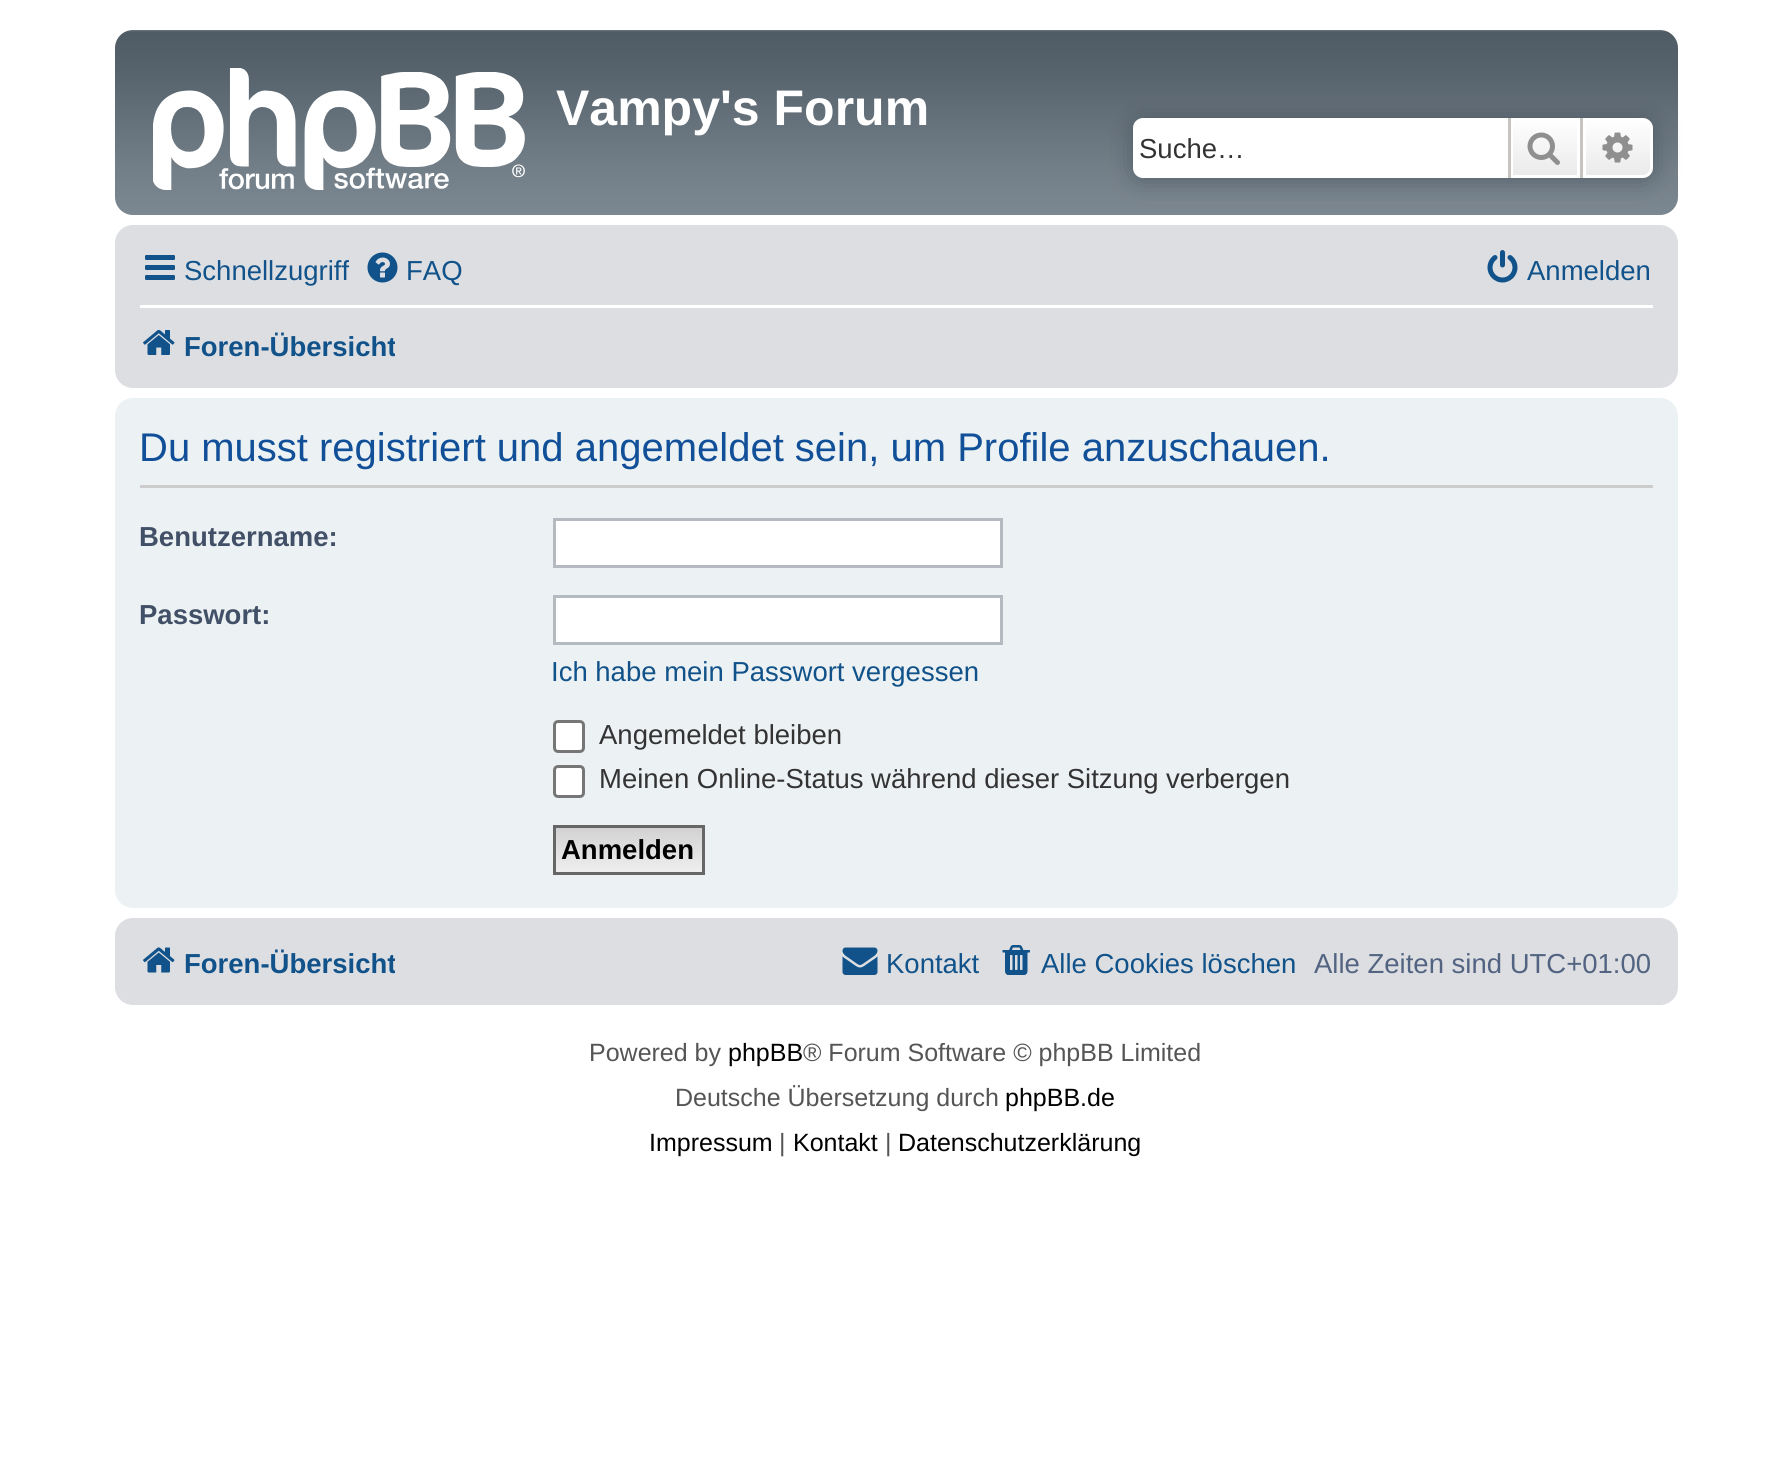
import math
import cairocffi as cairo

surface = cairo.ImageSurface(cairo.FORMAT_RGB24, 1789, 1470)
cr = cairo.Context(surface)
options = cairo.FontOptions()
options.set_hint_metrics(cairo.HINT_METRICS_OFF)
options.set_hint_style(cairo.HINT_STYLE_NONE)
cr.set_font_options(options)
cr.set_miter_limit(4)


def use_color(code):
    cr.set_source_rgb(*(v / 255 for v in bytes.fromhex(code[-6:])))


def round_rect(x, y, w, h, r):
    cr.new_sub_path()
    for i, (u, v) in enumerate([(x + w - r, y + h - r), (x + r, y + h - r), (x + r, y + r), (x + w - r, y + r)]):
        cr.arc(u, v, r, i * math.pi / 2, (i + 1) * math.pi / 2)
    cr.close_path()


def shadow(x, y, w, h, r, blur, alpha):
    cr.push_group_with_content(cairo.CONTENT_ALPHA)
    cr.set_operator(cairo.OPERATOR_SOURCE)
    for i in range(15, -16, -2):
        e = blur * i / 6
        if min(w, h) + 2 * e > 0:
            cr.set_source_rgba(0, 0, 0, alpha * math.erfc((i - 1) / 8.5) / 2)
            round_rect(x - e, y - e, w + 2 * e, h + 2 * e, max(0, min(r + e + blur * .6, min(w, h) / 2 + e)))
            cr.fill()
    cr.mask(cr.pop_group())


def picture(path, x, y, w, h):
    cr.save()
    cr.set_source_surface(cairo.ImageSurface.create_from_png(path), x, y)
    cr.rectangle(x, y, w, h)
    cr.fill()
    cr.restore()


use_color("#ffffff")
cr.paint()
gradient = cairo.LinearGradient(896, 30, 896, 215)
gradient.add_color_stop_rgba(0, 0.431, 0.467, 0.498, 1)
gradient.add_color_stop_rgba(0.01, 0.314, 0.361, 0.396, 1)
gradient.add_color_stop_rgba(0.2, 0.337, 0.384, 0.42, 1)
gradient.add_color_stop_rgba(0.75, 0.451, 0.498, 0.533, 1)
gradient.add_color_stop_rgba(1, 0.486, 0.533, 0.569, 1)
cr.set_source(gradient)
round_rect(115, 30, 1563, 185, 18)
cr.fill()
picture("img1.png", 153, 68, 372, 122)
cr.select_font_face("Liberation Sans", cairo.FONT_SLANT_NORMAL, cairo.FONT_WEIGHT_BOLD)
cr.set_font_size(50)
use_color("#ffffff")
cr.move_to(556, 125)
cr.show_text("Vampy's Forum")
use_color("#505c65")
shadow(1133, 118, 520, 60, 10, 12.5, 1)
use_color("#ffffff")
cr.new_path()
cr.move_to(1143, 118)
cr.line_to(1508, 118)
cr.line_to(1508, 178)
cr.line_to(1143, 178)
cr.curve_to(1137.5, 178, 1133, 173.5, 1133, 168)
cr.line_to(1133, 128)
cr.curve_to(1133, 122.5, 1137.5, 118, 1143, 118)
cr.close_path()
cr.fill()
cr.select_font_face("Liberation Sans")
cr.set_font_size(27.5)
use_color("#333333")
cr.move_to(1139, 158)
cr.show_text("Suche…")
gradient = cairo.LinearGradient(1545, 118, 1545, 178)
gradient.add_color_stop_rgba(0, 1, 1, 1, 1)
gradient.add_color_stop_rgba(1, 0.914, 0.914, 0.914, 1)
cr.set_source(gradient)
cr.rectangle(1513, 121, 64, 54)
cr.fill()
cr.rectangle(1511.5, 119.5, 67, 57)
use_color("#ffffff")
cr.set_line_width(3)
cr.stroke()
use_color("#c7c3bf")
cr.rectangle(1580, 118, 3, 60)
cr.fill()
cr.rectangle(1508, 118, 3, 60)
cr.fill()
picture("img2.png", 1527, 132, 33, 33)
gradient = cairo.LinearGradient(1618, 118, 1618, 178)
gradient.add_color_stop_rgba(0, 1, 1, 1, 1)
gradient.add_color_stop_rgba(1, 0.914, 0.914, 0.914, 1)
cr.set_source(gradient)
cr.new_path()
cr.move_to(1584.5, 119.5)
cr.line_to(1643, 119.5)
cr.curve_to(1647.5, 119.5, 1651.5, 123.5, 1651.5, 128)
cr.line_to(1651.5, 168)
cr.curve_to(1651.5, 172.5, 1647.5, 176.5, 1643, 176.5)
cr.line_to(1584.5, 176.5)
cr.close_path()
cr.fill_preserve()
use_color("#ffffff")
cr.stroke()
picture("img3.png", 1602, 132, 31, 31)
use_color("#dcdee2")
round_rect(115, 225, 1563, 163, 18)
cr.fill()
picture("img4.png", 145, 255, 30, 25)
use_color("#105289")
cr.move_to(184, 280)
cr.show_text("Schnellzugriff")
picture("img5.png", 367, 252, 31, 31)
cr.move_to(406, 280)
cr.show_text("FAQ")
picture("img6.png", 1487, 250, 31, 33)
cr.move_to(1527, 280)
cr.show_text("Anmelden")
use_color("#ffffff")
cr.rectangle(140, 305, 1513, 3)
cr.fill()
picture("img7.png", 143, 329, 32, 26)
cr.save()
cr.rectangle(140, 315, 255, 60)
cr.clip()
cr.select_font_face("Liberation Sans", cairo.FONT_SLANT_NORMAL, cairo.FONT_WEIGHT_BOLD)
use_color("#105289")
cr.move_to(184, 356)
cr.show_text("Foren-Übersicht")
cr.restore()
use_color("#ecf1f3")
round_rect(115, 398, 1563, 510, 18)
cr.fill()
use_color("#cccccc")
cr.rectangle(140, 485, 1513, 3)
cr.fill()
cr.set_font_size(40)
use_color("#115098")
cr.move_to(139, 461)
cr.show_text("Du musst registriert und angemeldet sein, um Profile anzuschauen.")
cr.select_font_face("Liberation Sans", cairo.FONT_SLANT_NORMAL, cairo.FONT_WEIGHT_BOLD)
cr.set_font_size(27.5)
use_color("#425067")
cr.move_to(139, 546)
cr.show_text("Benutzername:")
use_color("#ffffff")
cr.rectangle(554.5, 519.5, 447, 47)
cr.fill_preserve()
use_color("#b4bac0")
cr.stroke()
use_color("#425067")
cr.move_to(139, 624)
cr.show_text("Passwort:")
use_color("#ffffff")
cr.rectangle(554.5, 596.5, 447, 47)
cr.fill_preserve()
use_color("#b4bac0")
cr.stroke()
cr.select_font_face("Liberation Sans")
use_color("#105289")
cr.move_to(551, 681)
cr.show_text("Ich habe mein Passwort vergessen")
use_color("#ffffff")
round_rect(554.5, 721.5, 29, 30, 3.5)
cr.fill_preserve()
use_color("#767676")
cr.stroke()
use_color("#333333")
cr.move_to(599, 744)
cr.show_text("Angemeldet bleiben")
use_color("#ffffff")
round_rect(554.5, 766.5, 29, 30, 3.5)
cr.fill_preserve()
use_color("#767676")
cr.stroke()
use_color("#333333")
cr.move_to(599, 788)
cr.show_text("Meinen Online-Status während dieser Sitzung verbergen")
gradient = cairo.LinearGradient(629, 828, 629, 873)
gradient.add_color_stop_rgba(0, 0.824, 0.824, 0.824, 1)
gradient.add_color_stop_rgba(1, 0.937, 0.937, 0.937, 1)
cr.set_source(gradient)
cr.rectangle(556, 828, 146, 44)
cr.fill()
cr.rectangle(554.5, 826.5, 149, 47)
use_color("#666666")
cr.stroke()
cr.select_font_face("Liberation Sans", cairo.FONT_SLANT_NORMAL, cairo.FONT_WEIGHT_BOLD)
use_color("#000000")
cr.move_to(561, 859)
cr.show_text("Anmelden")
use_color("#dcdee2")
round_rect(115, 918, 1563, 87, 18)
cr.fill()
picture("img8.png", 143, 947, 32, 26)
cr.save()
cr.rectangle(140, 933, 255, 60)
cr.clip()
use_color("#105289")
cr.move_to(184, 973)
cr.show_text("Foren-Übersicht")
cr.restore()
picture("img9.png", 842, 947, 36, 28)
cr.select_font_face("Liberation Sans")
use_color("#105289")
cr.move_to(886, 973)
cr.show_text("Kontakt")
picture("img10.png", 1002, 945, 28, 30)
cr.move_to(1041, 973)
cr.show_text("Alle Cookies löschen")
use_color("#536482")
cr.move_to(1314, 973)
cr.show_text("Alle Zeiten sind UTC+01:00")
cr.set_font_size(25)
use_color("#555555")
cr.move_to(589, 1061)
cr.show_text("Powered by")
use_color("#000000")
cr.move_to(728, 1061)
cr.show_text("phpBB")
use_color("#555555")
cr.move_to(803, 1061)
cr.show_text("® Forum Software © phpBB Limited")
cr.move_to(675, 1106)
cr.show_text("Deutsche Übersetzung durch")
use_color("#000000")
cr.move_to(1005, 1106)
cr.show_text("phpBB.de")
cr.move_to(649, 1151)
cr.show_text("Impressum")
use_color("#555555")
cr.move_to(779, 1151)
cr.show_text("|")
use_color("#000000")
cr.move_to(793, 1151)
cr.show_text("Kontakt")
use_color("#555555")
cr.move_to(885, 1151)
cr.show_text("|")
use_color("#000000")
cr.move_to(898, 1151)
cr.show_text("Datenschutzerklärung")
surface.write_to_png("result.png")
